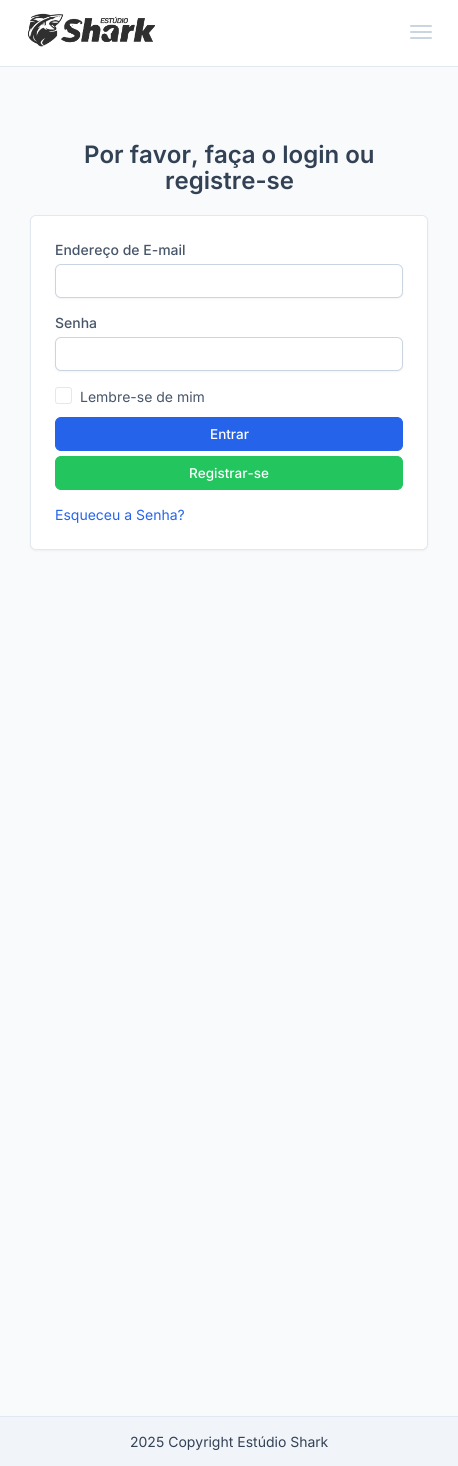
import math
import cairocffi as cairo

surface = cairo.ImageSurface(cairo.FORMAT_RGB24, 458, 1466)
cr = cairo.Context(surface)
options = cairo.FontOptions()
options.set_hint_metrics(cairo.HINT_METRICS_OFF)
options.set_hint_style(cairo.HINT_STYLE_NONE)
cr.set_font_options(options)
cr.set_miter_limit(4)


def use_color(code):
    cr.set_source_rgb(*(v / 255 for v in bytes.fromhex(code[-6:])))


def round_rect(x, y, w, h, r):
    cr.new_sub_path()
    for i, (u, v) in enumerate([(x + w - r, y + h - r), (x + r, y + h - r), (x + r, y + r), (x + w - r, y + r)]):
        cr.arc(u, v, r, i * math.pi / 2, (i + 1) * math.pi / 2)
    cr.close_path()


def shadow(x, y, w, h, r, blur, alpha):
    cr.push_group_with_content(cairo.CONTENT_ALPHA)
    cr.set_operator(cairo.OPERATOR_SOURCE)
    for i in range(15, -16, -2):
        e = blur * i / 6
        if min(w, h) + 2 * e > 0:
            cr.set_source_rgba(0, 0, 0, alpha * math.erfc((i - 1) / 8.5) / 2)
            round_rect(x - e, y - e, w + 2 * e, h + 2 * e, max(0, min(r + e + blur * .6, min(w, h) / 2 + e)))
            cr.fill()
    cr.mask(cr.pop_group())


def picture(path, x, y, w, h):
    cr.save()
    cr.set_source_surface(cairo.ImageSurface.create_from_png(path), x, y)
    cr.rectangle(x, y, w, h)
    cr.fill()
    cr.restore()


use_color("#f8fafc")
cr.paint()
use_color("#ffffff")
cr.rectangle(0, 0, 458, 66)
cr.fill()
use_color("#e2e8f0")
cr.rectangle(0, 66, 458, 1)
cr.fill()
picture("img1.png", 28, 13, 127, 34)
use_color("#cbd5e1")
round_rect(410, 25, 22, 2, 1)
cr.fill()
round_rect(410, 31, 22, 2, 1)
cr.fill()
round_rect(410, 37, 22, 2, 1)
cr.fill()
cr.select_font_face("Inter SemiBold")
cr.set_font_size(24)
use_color("#334155")
cr.move_to(84, 163)
cr.show_text("Por favor, faça o login ou")
cr.move_to(165, 189)
cr.show_text("registre-se")
use_color("#000000")
shadow(30, 216, 398, 335, 6, 1, 0.05)
use_color("#ffffff")
round_rect(30.5, 215.5, 397, 334, 5.5)
cr.fill_preserve()
use_color("#e2e8f0")
cr.set_line_width(1)
cr.stroke()
use_color("#ffffff")
round_rect(31, 216, 396, 333, 6)
cr.fill()
cr.select_font_face("Inter Medium")
cr.set_font_size(14)
use_color("#475569")
cr.move_to(55, 255)
cr.show_text("Endereço de E-mail")
use_color("#000000")
shadow(55, 265, 348, 34, 6, 1, 0.05)
use_color("#ffffff")
round_rect(55.5, 264.5, 347, 33, 5.5)
cr.fill_preserve()
use_color("#cbd5e1")
cr.stroke()
use_color("#475569")
cr.move_to(55, 328)
cr.show_text("Senha")
use_color("#000000")
shadow(55, 338, 348, 34, 6, 1, 0.05)
use_color("#ffffff")
round_rect(55.5, 337.5, 347, 33, 5.5)
cr.fill_preserve()
use_color("#cbd5e1")
cr.stroke()
round_rect(55.5, 387.5, 16, 16, 2.5)
use_color("#e2e8f0")
cr.stroke()
cr.select_font_face("Inter")
use_color("#475569")
cr.move_to(80, 402)
cr.show_text("Lembre-se de mim")
use_color("#2563eb")
round_rect(55.5, 417.5, 347, 33, 5.5)
cr.fill_preserve()
cr.stroke()
cr.select_font_face("Inter Medium")
cr.set_font_size(13.5)
use_color("#ffffff")
cr.move_to(210, 439)
cr.show_text("Entrar")
use_color("#22c55e")
round_rect(55.5, 456.5, 347, 33, 5.5)
cr.fill_preserve()
cr.stroke()
use_color("#ffffff")
cr.move_to(189, 478)
cr.show_text("Registrar-se")
cr.select_font_face("Inter")
cr.set_font_size(14)
use_color("#2563eb")
cr.move_to(55, 520)
cr.show_text("Esqueceu a Senha?")
use_color("#f1f5f9")
cr.rectangle(0, 1417, 458, 49)
cr.fill()
use_color("#e2e8f0")
cr.rectangle(0, 1416, 458, 1)
cr.fill()
use_color("#334155")
cr.move_to(130, 1447)
cr.show_text("2025 Copyright Estúdio Shark")
surface.write_to_png("result.png")
